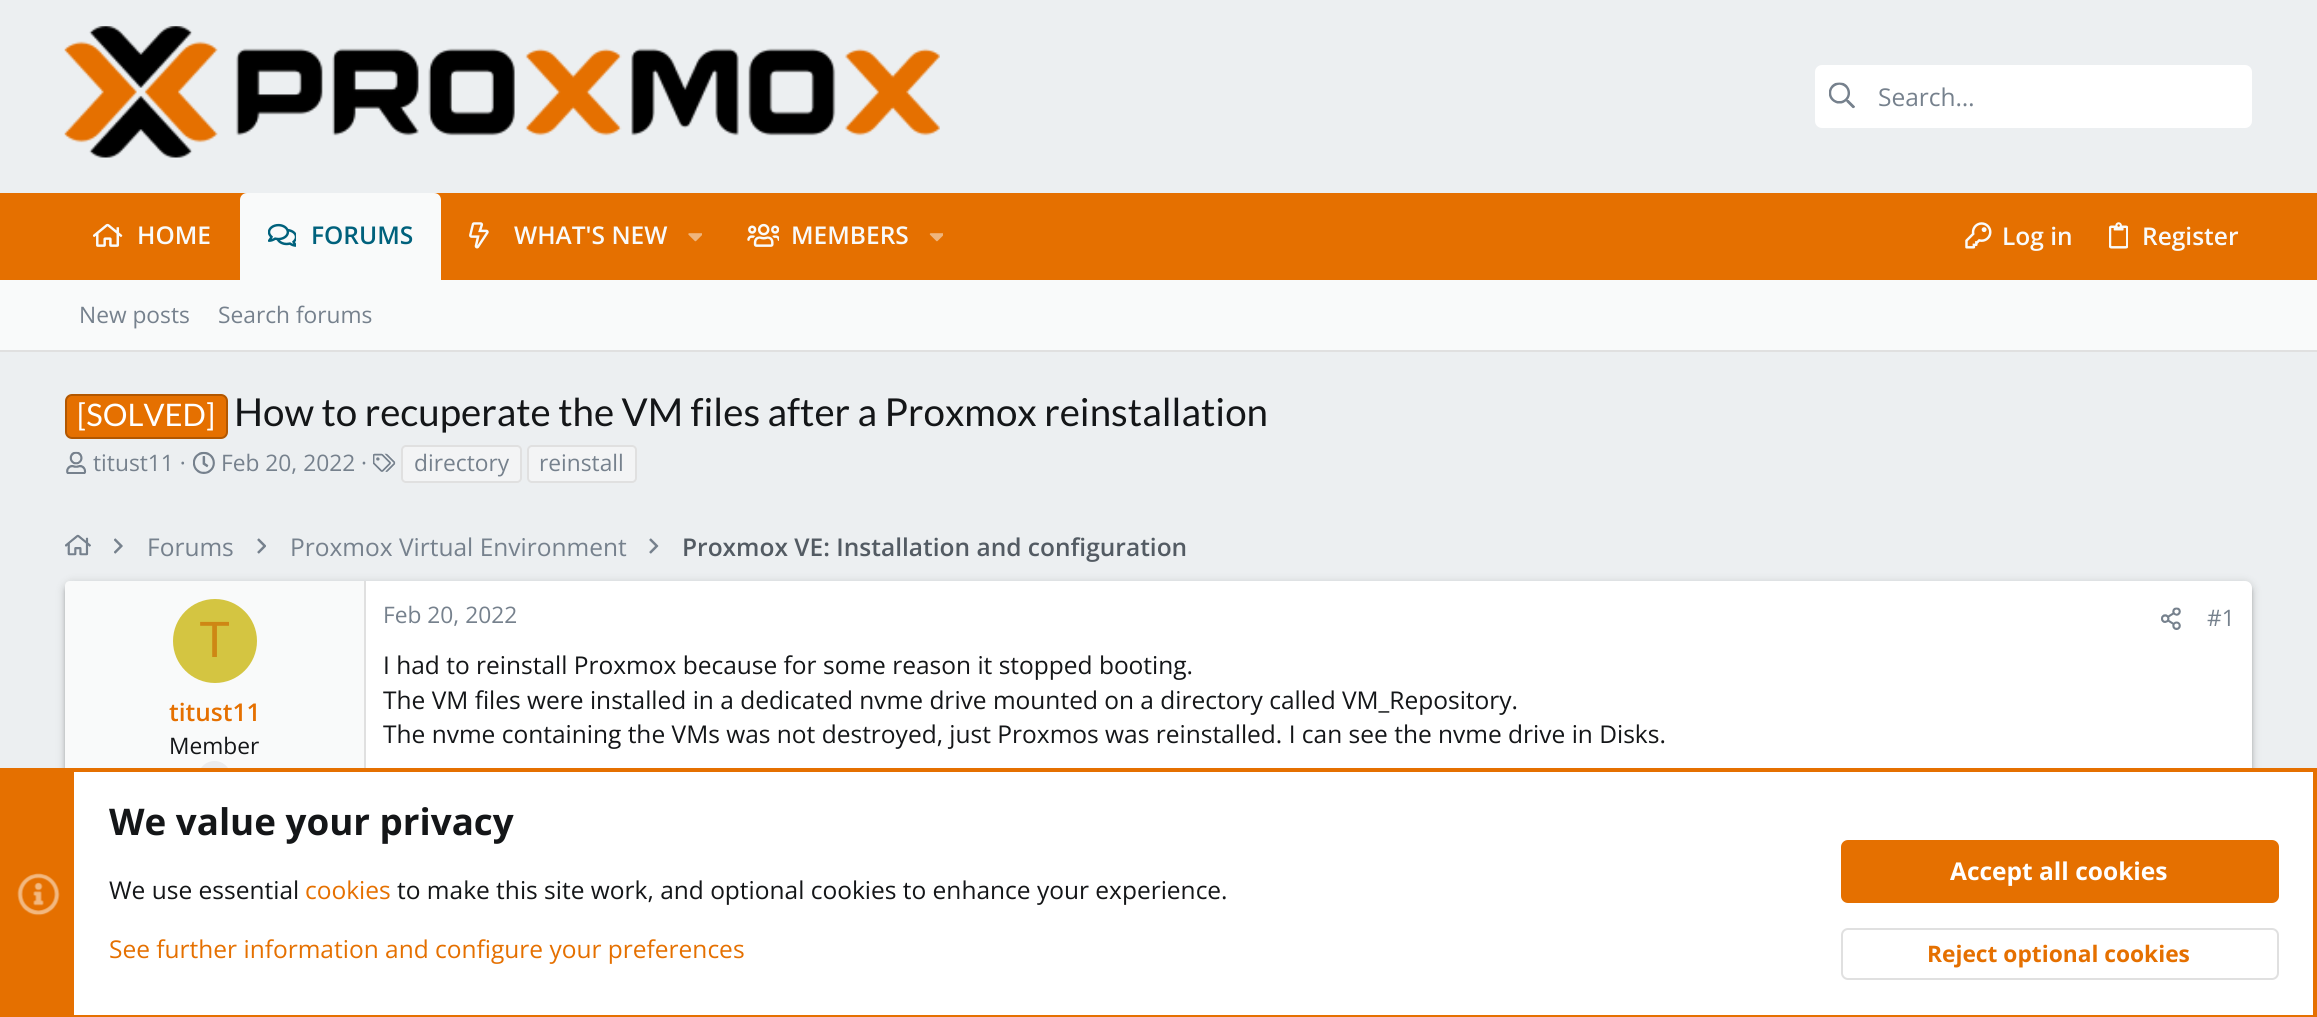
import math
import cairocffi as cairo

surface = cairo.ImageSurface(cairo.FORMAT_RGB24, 2317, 1017)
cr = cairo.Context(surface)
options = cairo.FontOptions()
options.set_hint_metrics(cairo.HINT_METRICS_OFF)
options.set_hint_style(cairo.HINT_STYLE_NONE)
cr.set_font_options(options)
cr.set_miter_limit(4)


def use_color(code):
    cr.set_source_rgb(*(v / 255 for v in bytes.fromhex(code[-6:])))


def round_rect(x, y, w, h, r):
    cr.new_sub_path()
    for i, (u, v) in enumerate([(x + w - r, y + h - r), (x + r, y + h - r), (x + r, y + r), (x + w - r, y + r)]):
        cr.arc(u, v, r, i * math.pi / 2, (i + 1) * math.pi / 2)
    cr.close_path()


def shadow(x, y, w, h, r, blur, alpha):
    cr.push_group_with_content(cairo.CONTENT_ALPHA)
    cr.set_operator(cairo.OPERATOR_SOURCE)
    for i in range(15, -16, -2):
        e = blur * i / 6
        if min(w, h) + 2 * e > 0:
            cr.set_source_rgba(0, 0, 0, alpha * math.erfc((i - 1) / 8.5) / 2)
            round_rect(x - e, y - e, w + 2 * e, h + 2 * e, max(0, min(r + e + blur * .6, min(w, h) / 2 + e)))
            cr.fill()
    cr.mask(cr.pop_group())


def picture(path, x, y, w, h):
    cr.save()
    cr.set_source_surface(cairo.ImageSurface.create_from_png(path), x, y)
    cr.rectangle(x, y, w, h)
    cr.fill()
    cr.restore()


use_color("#eceff1")
cr.paint()
picture("img1.png", 64, 26, 876, 132)
use_color("#ffffff")
round_rect(1815, 65, 437, 63, 7)
cr.fill()
picture("img2.png", 1829, 82, 26, 27)
cr.select_font_face("Open Sans")
cr.set_font_size(24.5)
use_color("#76818d")
cr.move_to(1878, 106)
cr.show_text("Search…")
use_color("#e57000")
cr.rectangle(0, 193, 2317, 87)
cr.fill()
picture("img3.png", 93, 223, 30, 24)
cr.select_font_face("Open Sans SemiBold")
use_color("#f9fafa")
cr.move_to(137, 244)
cr.show_text("HOME")
cr.new_path()
cr.move_to(247, 193)
cr.line_to(434, 193)
cr.curve_to(438, 193, 441, 196, 441, 200)
cr.line_to(441, 280)
cr.line_to(240, 280)
cr.line_to(240, 200)
cr.curve_to(240, 196, 243, 193, 247, 193)
cr.close_path()
cr.fill()
picture("img4.png", 268, 223, 28, 24)
use_color("#00617c")
cr.move_to(311, 244)
cr.show_text("FORUMS")
picture("img5.png", 469, 222, 20, 27)
use_color("#f9fafa")
cr.move_to(514, 244)
cr.show_text("WHAT'S NEW")
picture("img6.png", 688, 233, 14, 9)
picture("img7.png", 747, 223, 32, 24)
cr.move_to(791, 244)
cr.show_text("MEMBERS")
picture("img8.png", 929, 233, 14, 9)
picture("img9.png", 1965, 222, 27, 27)
cr.move_to(2002, 245)
cr.show_text("Log in")
picture("img10.png", 2109, 222, 19, 27)
cr.move_to(2142, 245)
cr.show_text("Register")
cr.rectangle(0, 280, 2317, 70)
cr.fill()
use_color("#e0e0e0")
cr.rectangle(0, 350, 2317, 2)
cr.fill()
cr.select_font_face("Open Sans")
cr.set_font_size(22.75)
use_color("#76818d")
cr.move_to(79, 323)
cr.show_text("New posts")
cr.move_to(218, 323)
cr.show_text("Search forums")
use_color("#e57000")
round_rect(66, 395, 161, 43, 6)
cr.fill_preserve()
use_color("#b25700")
cr.stroke()
cr.select_font_face("Lato")
cr.set_font_size(31)
use_color("#ffffff")
cr.move_to(77, 426)
cr.show_text("[SOLVED]")
cr.set_font_size(38.5)
use_color("#141618")
cr.move_to(234, 426)
cr.show_text("How to recuperate the VM files after a Proxmox reinstallation")
picture("img11.png", 66, 451, 21, 23)
cr.select_font_face("Open Sans")
cr.set_font_size(22.75)
use_color("#76818d")
cr.move_to(93, 471)
cr.show_text("titust11 ·")
picture("img12.png", 193, 451, 22, 23)
cr.move_to(221, 471)
cr.show_text("Feb 20, 2022 ·")
picture("img13.png", 373, 453, 23, 19)
use_color("#f3f4f5")
round_rect(402, 446, 119, 36, 4)
cr.fill_preserve()
use_color("#e0e0e0")
cr.stroke()
use_color("#76818d")
cr.move_to(414, 471)
cr.show_text("directory")
use_color("#f3f4f5")
round_rect(528, 446, 108, 36, 4)
cr.fill_preserve()
use_color("#e0e0e0")
cr.stroke()
use_color("#76818d")
cr.move_to(539, 471)
cr.show_text("reinstall")
picture("img14.png", 65, 534, 26, 22)
picture("img15.png", 114, 538, 9, 16)
cr.set_font_size(24.5)
cr.move_to(147, 556)
cr.show_text("Forums")
picture("img16.png", 257, 538, 9, 16)
cr.move_to(290, 556)
cr.show_text("Proxmox Virtual Environment")
picture("img17.png", 649, 538, 10, 16)
cr.select_font_face("Open Sans SemiBold")
use_color("#535b63")
cr.move_to(682, 556)
cr.show_text("Proxmox VE: Installation and configuration")
use_color("#000000")
shadow(65, 583, 2187, 376, 7, 4.5, 0.2)
shadow(65, 585, 2187, 376, 7, 2, 0.14)
use_color("#ffffff")
round_rect(65, 581, 2187, 376, 7)
cr.fill()
use_color("#f9fafa")
cr.new_path()
cr.move_to(70, 581)
cr.line_to(366, 581)
cr.line_to(366, 957)
cr.line_to(70, 957)
cr.curve_to(67, 957, 65, 955, 65, 952)
cr.line_to(65, 586)
cr.curve_to(65, 583, 67, 581, 70, 581)
cr.close_path()
cr.fill()
use_color("#e0e0e0")
cr.rectangle(364, 581, 2, 187)
cr.fill()
use_color("#d4c541")
cr.arc(215, 641, 42, 0, 2 * math.pi)
cr.fill()
cr.select_font_face("Liberation Sans")
cr.set_font_size(51)
use_color("#ce8714")
cr.move_to(199, 657)
cr.show_text("T")
cr.select_font_face("Open Sans SemiBold")
cr.set_font_size(24.5)
use_color("#e57000")
cr.move_to(169, 721)
cr.show_text("titust11")
cr.select_font_face("Open Sans")
cr.set_font_size(22.75)
use_color("#141618")
cr.move_to(169, 754)
cr.show_text("Member")
use_color("#ebecee")
round_rect(198, 761, 33, 34, 16.5)
cr.fill()
use_color("#76818d")
cr.move_to(383, 623)
cr.show_text("Feb 20, 2022")
picture("img18.png", 2161, 607, 20, 23)
cr.move_to(2207, 626)
cr.show_text("#1")
cr.set_font_size(24.5)
use_color("#141618")
cr.move_to(383, 674)
cr.show_text("I had to reinstall Proxmox because for some reason it stopped booting.")
cr.move_to(383, 709)
cr.show_text("The VM files were installed in a dedicated nvme drive mounted on a directory called VM_Repository.")
cr.move_to(383, 743)
cr.show_text("The nvme containing the VMs was not destroyed, just Proxmos was reinstalled. I can see the nvme drive in Disks.")
use_color("#ffffff")
cr.rectangle(74, 772, 2239, 243)
cr.fill()
cr.rectangle(2, 770, 2313, 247)
use_color("#e57000")
cr.set_line_width(4)
cr.stroke()
cr.rectangle(4, 772, 70, 243)
cr.fill()
picture("img19.png", 17, 873, 43, 43)
cr.select_font_face("Open Sans", cairo.FONT_SLANT_NORMAL, cairo.FONT_WEIGHT_BOLD)
cr.set_font_size(36.75)
use_color("#141618")
cr.move_to(109, 835)
cr.show_text("We value your privacy")
cr.select_font_face("Open Sans")
cr.set_font_size(24.5)
cr.move_to(109, 899)
cr.show_text("We use essential")
use_color("#e57000")
cr.move_to(305, 899)
cr.show_text("cookies")
use_color("#141618")
cr.move_to(397, 899)
cr.show_text("to make this site work, and optional cookies to enhance your experience.")
use_color("#e57000")
cr.move_to(109, 958)
cr.show_text("See further information and configure your preferences")
round_rect(1841, 840, 438, 63, 7)
cr.fill()
cr.select_font_face("Open Sans", cairo.FONT_SLANT_NORMAL, cairo.FONT_WEIGHT_BOLD)
use_color("#ffffff")
cr.move_to(1950, 880)
cr.show_text("Accept all cookies")
round_rect(1842, 929, 436, 50, 6)
use_color("#e0e0e0")
cr.set_line_width(2)
cr.stroke()
cr.set_font_size(22.75)
use_color("#e57000")
cr.move_to(1927, 962)
cr.show_text("Reject optional cookies")
surface.write_to_png("result.png")
